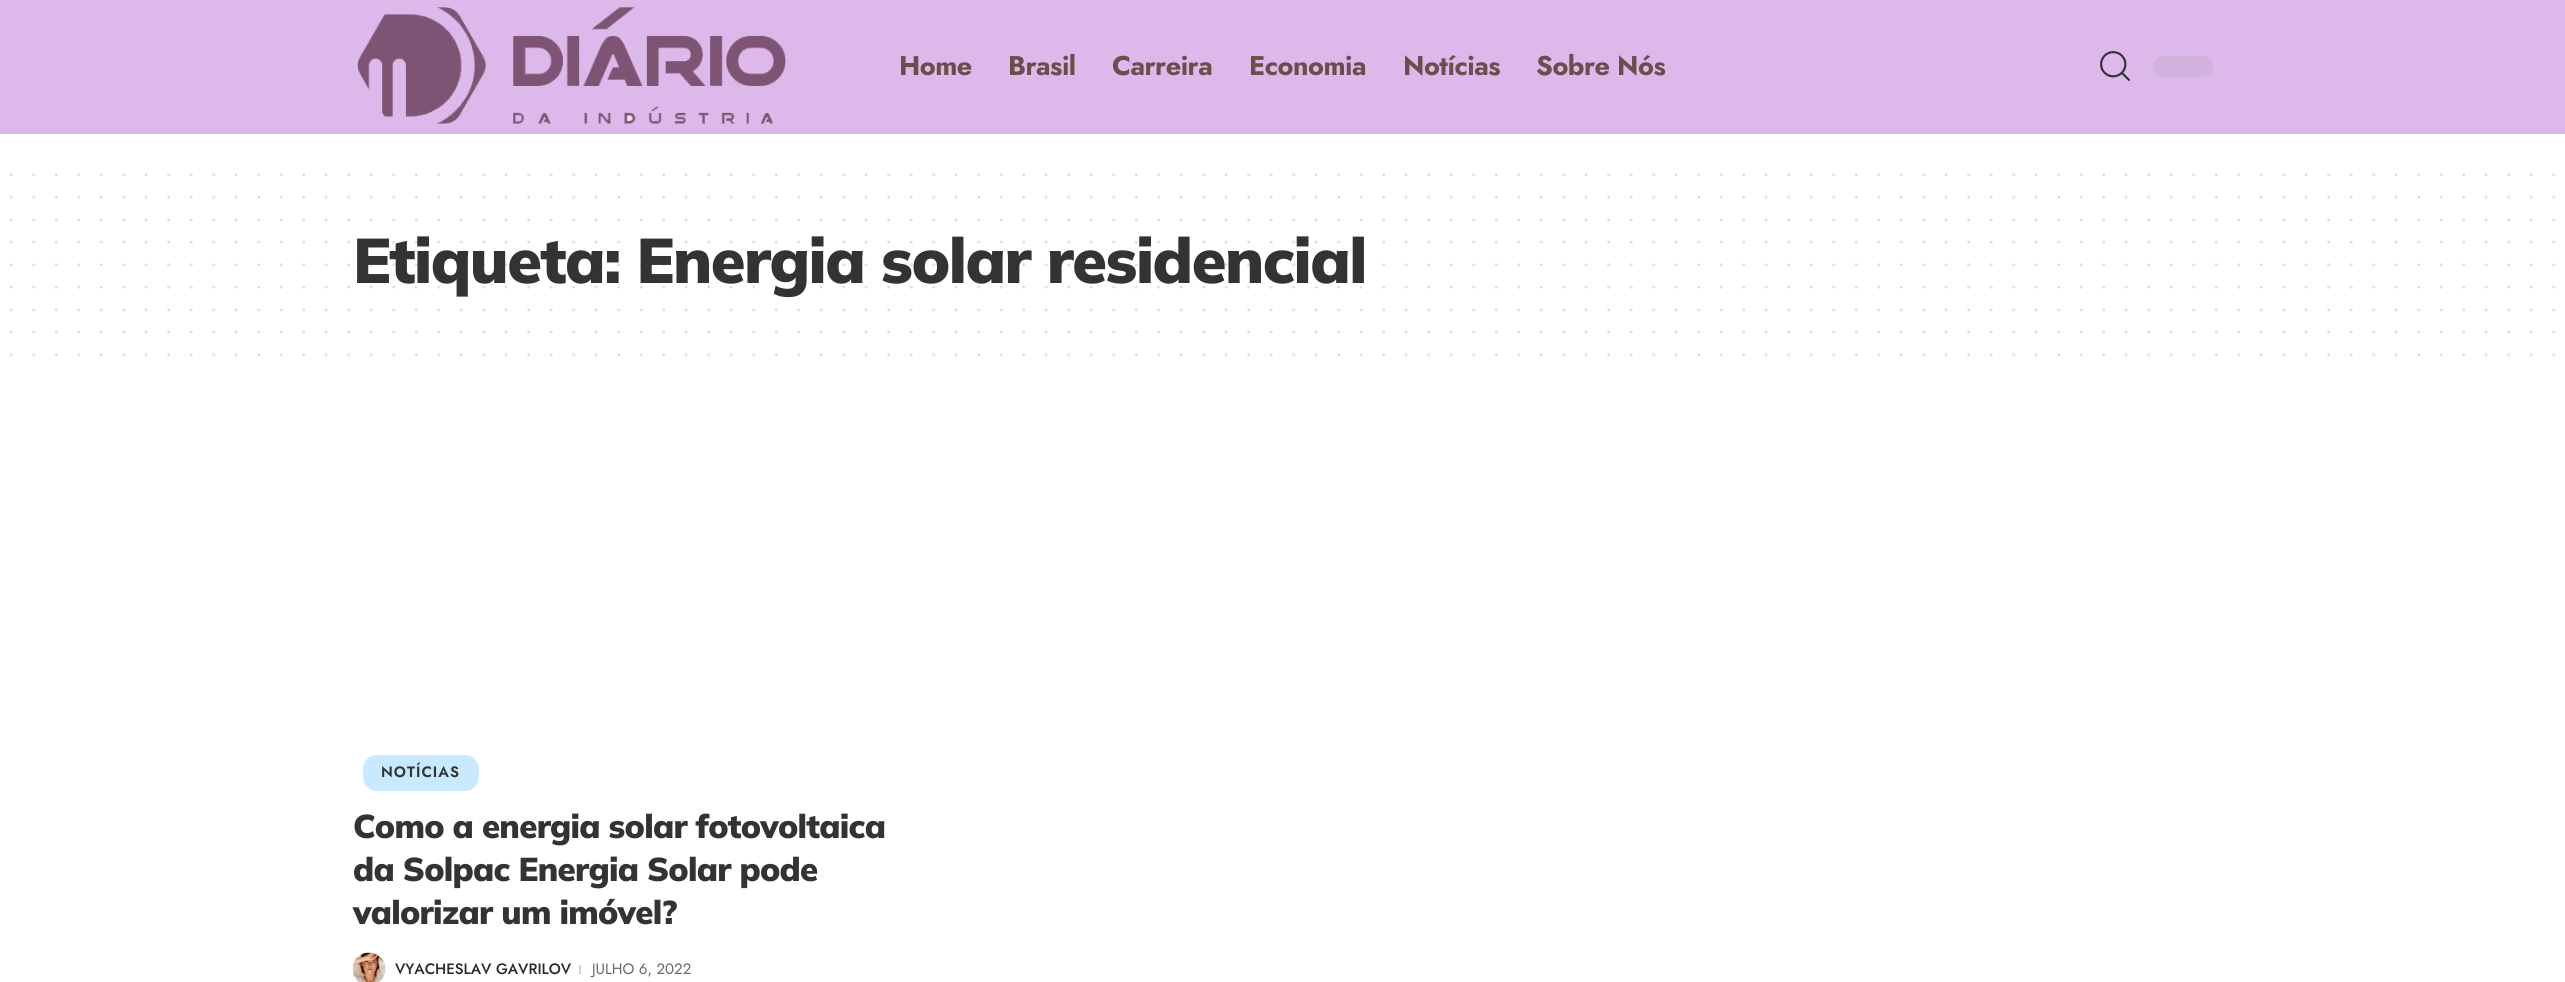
import math
import cairocffi as cairo

surface = cairo.ImageSurface(cairo.FORMAT_RGB24, 2565, 982)
cr = cairo.Context(surface)
options = cairo.FontOptions()
options.set_hint_metrics(cairo.HINT_METRICS_OFF)
options.set_hint_style(cairo.HINT_STYLE_NONE)
cr.set_font_options(options)
cr.set_miter_limit(4)


def use_color(code):
    cr.set_source_rgb(*(v / 255 for v in bytes.fromhex(code[-6:])))


def spaced_text(x, y, s, letter, word):
    cr.move_to(x, y)
    for ch in s:
        cr.show_text(ch)
        cr.rel_move_to(letter + word * (ch == ' '), 0)


def round_rect(x, y, w, h, r):
    cr.new_sub_path()
    for i, (u, v) in enumerate([(x + w - r, y + h - r), (x + r, y + h - r), (x + r, y + r), (x + w - r, y + r)]):
        cr.arc(u, v, r, i * math.pi / 2, (i + 1) * math.pi / 2)
    cr.close_path()


def picture(path, x, y, w, h):
    cr.save()
    cr.set_source_surface(cairo.ImageSurface.create_from_png(path), x, y)
    cr.rectangle(x, y, w, h)
    cr.fill()
    cr.restore()


use_color("#ffffff")
cr.paint()
use_color("#ddb9eb")
cr.rectangle(0, 0, 2565, 134)
cr.fill()
picture("img1.png", 357, 7, 429, 117)
cr.select_font_face("Jost", cairo.FONT_SLANT_NORMAL, cairo.FONT_WEIGHT_BOLD)
cr.set_font_size(27)
use_color("#6c4d4d")
spaced_text(899, 75, "Home", -0.5, 0)
spaced_text(1008, 75, "Brasil", -0.5, 0)
spaced_text(1112, 75, "Carreira", -0.5, 0)
spaced_text(1249, 75, "Economia", -0.5, 0)
spaced_text(1403, 75, "Notícias", -0.5, 0)
spaced_text(1536, 75, "Sobre Nós", -0.5, 0)
picture("img2.png", 2100, 51, 30, 30)
use_color("#d0b2dc")
round_rect(2153, 56, 60, 21, 10.5)
cr.fill()
cr.new_path()
cr.move_to(11.2, 174.8)
cr.line_to(2554.1, 174.8)
use_color("#e0e0e0")
cr.set_line_width(3)
cr.set_line_cap(cairo.LINE_CAP_ROUND)
cr.set_dash([0, 22.5])
cr.stroke()
cr.new_path()
cr.move_to(11.2, 197.2)
cr.line_to(2554.1, 197.2)
cr.stroke()
cr.new_path()
cr.move_to(11.2, 219.8)
cr.line_to(2554.1, 219.8)
cr.stroke()
cr.select_font_face("Mulish Black")
cr.set_font_size(63)
use_color("#333333")
spaced_text(353, 283, "Etiqueta: Energia solar residencial", -1.5, 0)
cr.new_path()
cr.move_to(11.2, 242.2)
cr.line_to(2554.1, 242.2)
cr.set_source_rgba(0.2, 0.2, 0.2, 0.15)
cr.stroke()
cr.new_path()
cr.move_to(11.2, 264.8)
cr.line_to(2554.1, 264.8)
cr.stroke()
cr.new_path()
cr.move_to(11.2, 287.2)
cr.line_to(2554.1, 287.2)
cr.stroke()
cr.new_path()
cr.move_to(11.2, 309.8)
cr.line_to(2554.1, 309.8)
use_color("#e0e0e0")
cr.stroke()
cr.new_path()
cr.move_to(11.2, 332.2)
cr.line_to(2554.1, 332.2)
cr.stroke()
cr.new_path()
cr.move_to(11.2, 354.8)
cr.line_to(2554.1, 354.8)
cr.stroke()
use_color("#c8eaff")
round_rect(363, 755, 116, 36, 14)
cr.fill()
cr.select_font_face("Jost SemiBold")
cr.set_font_size(15)
use_color("#333333")
spaced_text(381, 777, "NOTÍCIAS", 1, 0)
cr.select_font_face("Mulish Black")
cr.set_font_size(33)
spaced_text(353, 838, "Como a energia solar fotovoltaica", -0.75, 0)
spaced_text(353, 881, "da Solpac Energia Solar pode", -0.75, 0)
spaced_text(353, 924, "valorizar um imóvel?", -0.75, 0)
picture("img3.png", 352, 952, 34, 30)
cr.select_font_face("Jost Medium")
cr.set_font_size(15)
use_color("#282828")
cr.move_to(395, 974)
cr.show_text("VYACHESLAV GAVRILOV")
use_color("#d1d1d1")
cr.rectangle(579, 965, 2, 9)
cr.fill()
cr.select_font_face("Jost")
use_color("#666666")
cr.move_to(592, 974)
cr.show_text("JULHO 6, 2022")
surface.write_to_png("result.png")
